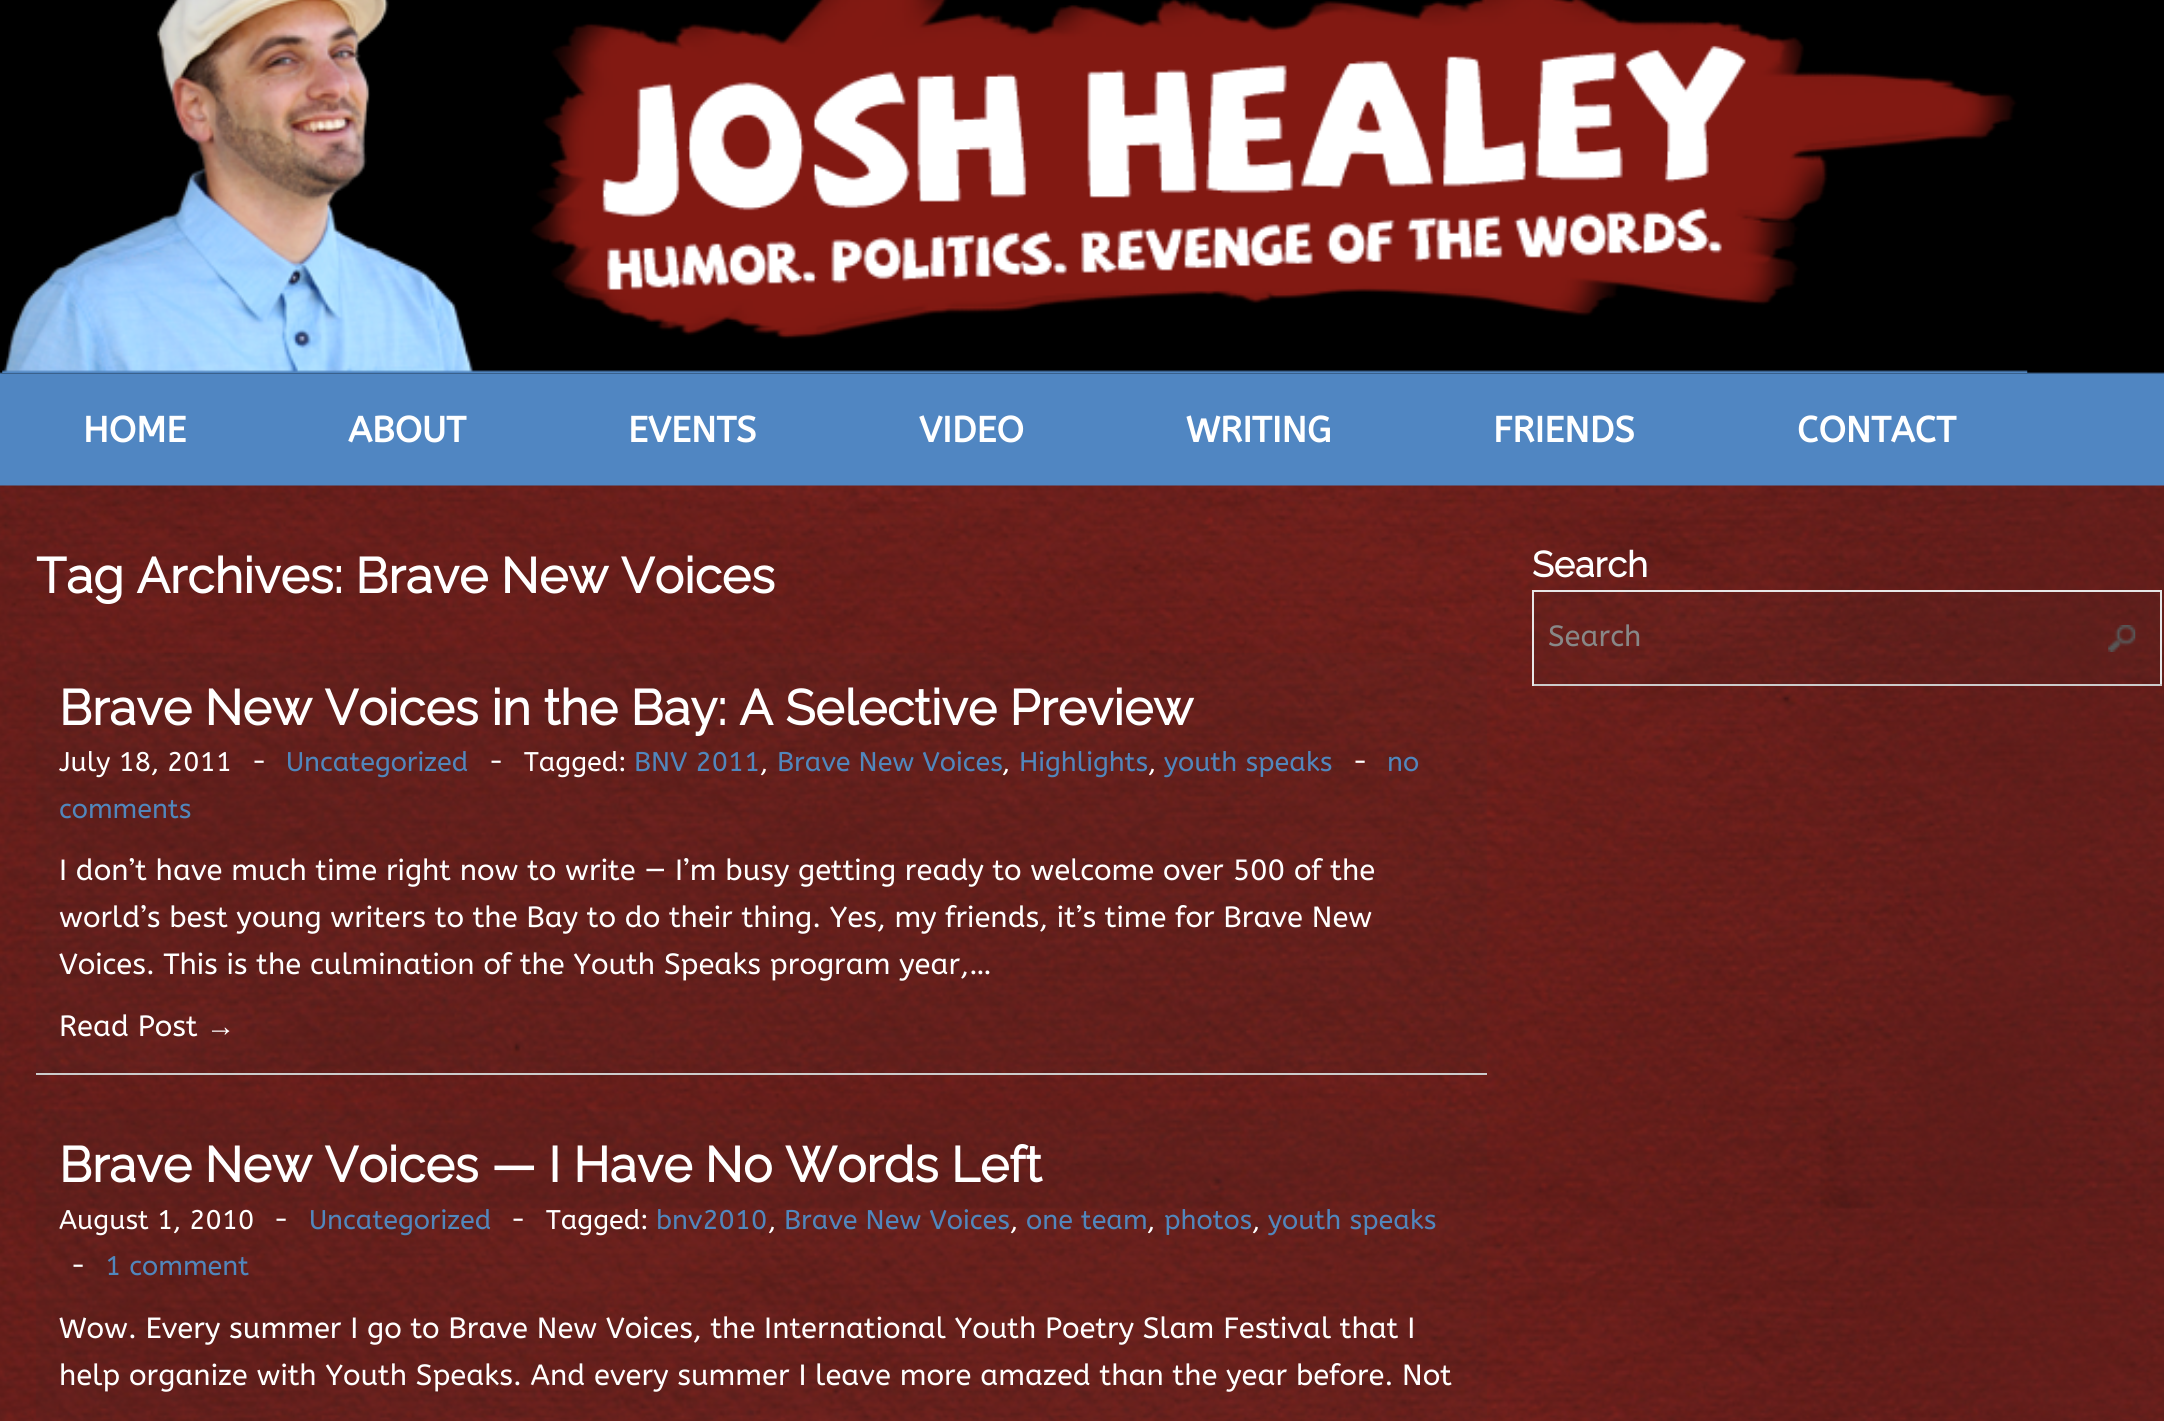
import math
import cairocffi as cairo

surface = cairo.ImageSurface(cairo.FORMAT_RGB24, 2164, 1421)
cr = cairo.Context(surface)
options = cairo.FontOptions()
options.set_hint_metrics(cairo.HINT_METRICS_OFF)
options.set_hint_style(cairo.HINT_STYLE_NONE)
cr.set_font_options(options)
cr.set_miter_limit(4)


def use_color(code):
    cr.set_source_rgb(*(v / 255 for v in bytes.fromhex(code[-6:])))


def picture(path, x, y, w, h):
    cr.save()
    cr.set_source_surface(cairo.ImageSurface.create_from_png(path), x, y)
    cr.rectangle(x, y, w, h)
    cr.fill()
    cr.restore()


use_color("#ffffff")
cr.paint()
picture("img1.png", 0, 485, 2164, 936)
picture("img2.png", 0, 0, 2164, 486)
picture("img3.png", 2, 0, 2026, 373)
cr.select_font_face("ABeeZee", cairo.FONT_SLANT_NORMAL, cairo.FONT_WEIGHT_BOLD)
cr.set_font_size(36)
use_color("#ffffff")
cr.move_to(83, 442)
cr.show_text("HOME")
cr.move_to(348, 442)
cr.show_text("ABOUT")
cr.move_to(628, 442)
cr.show_text("EVENTS")
cr.move_to(919, 442)
cr.show_text("VIDEO")
cr.move_to(1186, 442)
cr.show_text("WRITING")
cr.move_to(1493, 442)
cr.show_text("FRIENDS")
cr.move_to(1797, 442)
cr.show_text("CONTACT")
cr.select_font_face("Raleway", cairo.FONT_SLANT_NORMAL, cairo.FONT_WEIGHT_BOLD)
cr.set_font_size(49.5)
cr.move_to(36, 593)
cr.show_text("Tag Archives: Brave New Voices")
cr.set_source_rgba(0.2, 0.2, 0.2, 0.07)
cr.rectangle(36, 653, 1451, 423)
cr.fill()
use_color("#cccccc")
cr.rectangle(36, 1073, 1451, 2)
cr.fill()
use_color("#ffffff")
cr.move_to(59, 725)
cr.show_text("Brave New Voices in the Bay: A Selective Preview")
cr.select_font_face("ABeeZee")
cr.set_font_size(27)
cr.move_to(59, 771)
cr.show_text("July 18, 2011")
cr.move_to(251, 771)
cr.show_text("-")
use_color("#5187bd")
cr.move_to(286, 771)
cr.show_text("Uncategorized")
use_color("#ffffff")
cr.move_to(488, 771)
cr.show_text("-")
cr.move_to(524, 771)
cr.show_text("Tagged:")
use_color("#5187bd")
cr.move_to(634, 771)
cr.show_text("BNV 2011")
cr.move_to(777, 771)
cr.show_text("Brave New Voices")
cr.move_to(1019, 771)
cr.show_text("Highlights")
cr.move_to(1164, 771)
cr.show_text("youth speaks")
use_color("#ffffff")
cr.move_to(1352, 771)
cr.show_text("-")
use_color("#5187bd")
cr.move_to(1387, 771)
cr.show_text("no")
use_color("#ffffff")
cr.move_to(760, 771)
cr.show_text(",")
cr.move_to(1002, 771)
cr.show_text(",")
cr.move_to(1148, 771)
cr.show_text(",")
use_color("#5187bd")
cr.move_to(59, 818)
cr.show_text("comments")
cr.set_font_size(29.25)
use_color("#ffffff")
cr.move_to(59, 880)
cr.show_text("I don’t have much time right now to write — I’m busy getting ready to welcome over 500 of the")
cr.move_to(59, 927)
cr.show_text("world’s best young writers to the Bay to do their thing. Yes, my friends, it’s time for Brave New")
cr.move_to(59, 974)
cr.show_text("Voices. This is the culmination of the Youth Speaks program year,…")
cr.move_to(59, 1036)
cr.show_text("Read Post")
cr.select_font_face("Liberation Sans")
cr.move_to(206, 1036)
cr.show_text("→")
cr.set_source_rgba(0.2, 0.2, 0.2, 0.07)
cr.rectangle(36, 1109, 1451, 312)
cr.fill()
cr.select_font_face("Raleway", cairo.FONT_SLANT_NORMAL, cairo.FONT_WEIGHT_BOLD)
cr.set_font_size(49.5)
use_color("#ffffff")
cr.move_to(59, 1182)
cr.show_text("Brave New Voices — I Have No Words Left")
cr.select_font_face("ABeeZee")
cr.set_font_size(27)
cr.move_to(59, 1229)
cr.show_text("August 1, 2010")
cr.move_to(273, 1229)
cr.show_text("-")
use_color("#5187bd")
cr.move_to(309, 1229)
cr.show_text("Uncategorized")
use_color("#ffffff")
cr.move_to(510, 1229)
cr.show_text("-")
cr.move_to(546, 1229)
cr.show_text("Tagged:")
use_color("#5187bd")
cr.move_to(656, 1229)
cr.show_text("bnv2010")
cr.move_to(784, 1229)
cr.show_text("Brave New Voices")
cr.move_to(1026, 1229)
cr.show_text("one team")
cr.move_to(1164, 1229)
cr.show_text("photos")
cr.move_to(1268, 1229)
cr.show_text("youth speaks")
use_color("#ffffff")
cr.move_to(768, 1229)
cr.show_text(",")
cr.move_to(1010, 1229)
cr.show_text(",")
cr.move_to(1147, 1229)
cr.show_text(",")
cr.move_to(1252, 1229)
cr.show_text(",")
cr.move_to(70, 1275)
cr.show_text("-")
use_color("#5187bd")
cr.move_to(105, 1275)
cr.show_text("1 comment")
cr.set_font_size(29.25)
use_color("#ffffff")
cr.move_to(59, 1338)
cr.show_text("Wow. Every summer I go to Brave New Voices, the International Youth Poetry Slam Festival that I")
cr.move_to(59, 1385)
cr.show_text("help organize with Youth Speaks. And every summer I leave more amazed than the year before. Not")
cr.select_font_face("Raleway", cairo.FONT_SLANT_NORMAL, cairo.FONT_WEIGHT_BOLD)
cr.set_font_size(36)
cr.move_to(1532, 577)
cr.show_text("Search")
cr.set_source_rgba(0.2, 0.2, 0.2, 0.07)
cr.rectangle(1534, 592, 626, 92)
cr.fill()
picture("img4.png", 2108, 625, 28, 27)
use_color("#e7e7e7")
cr.rectangle(1532, 590, 630, 2)
cr.fill()
cr.rectangle(2160, 590, 2, 96)
cr.fill()
use_color("#cccccc")
cr.rectangle(1532, 684, 630, 2)
cr.fill()
use_color("#e7e7e7")
cr.rectangle(1532, 590, 2, 96)
cr.fill()
cr.select_font_face("ABeeZee")
cr.set_font_size(29.25)
use_color("#888888")
cr.move_to(1548, 646)
cr.show_text("Search")
surface.write_to_png("result.png")
